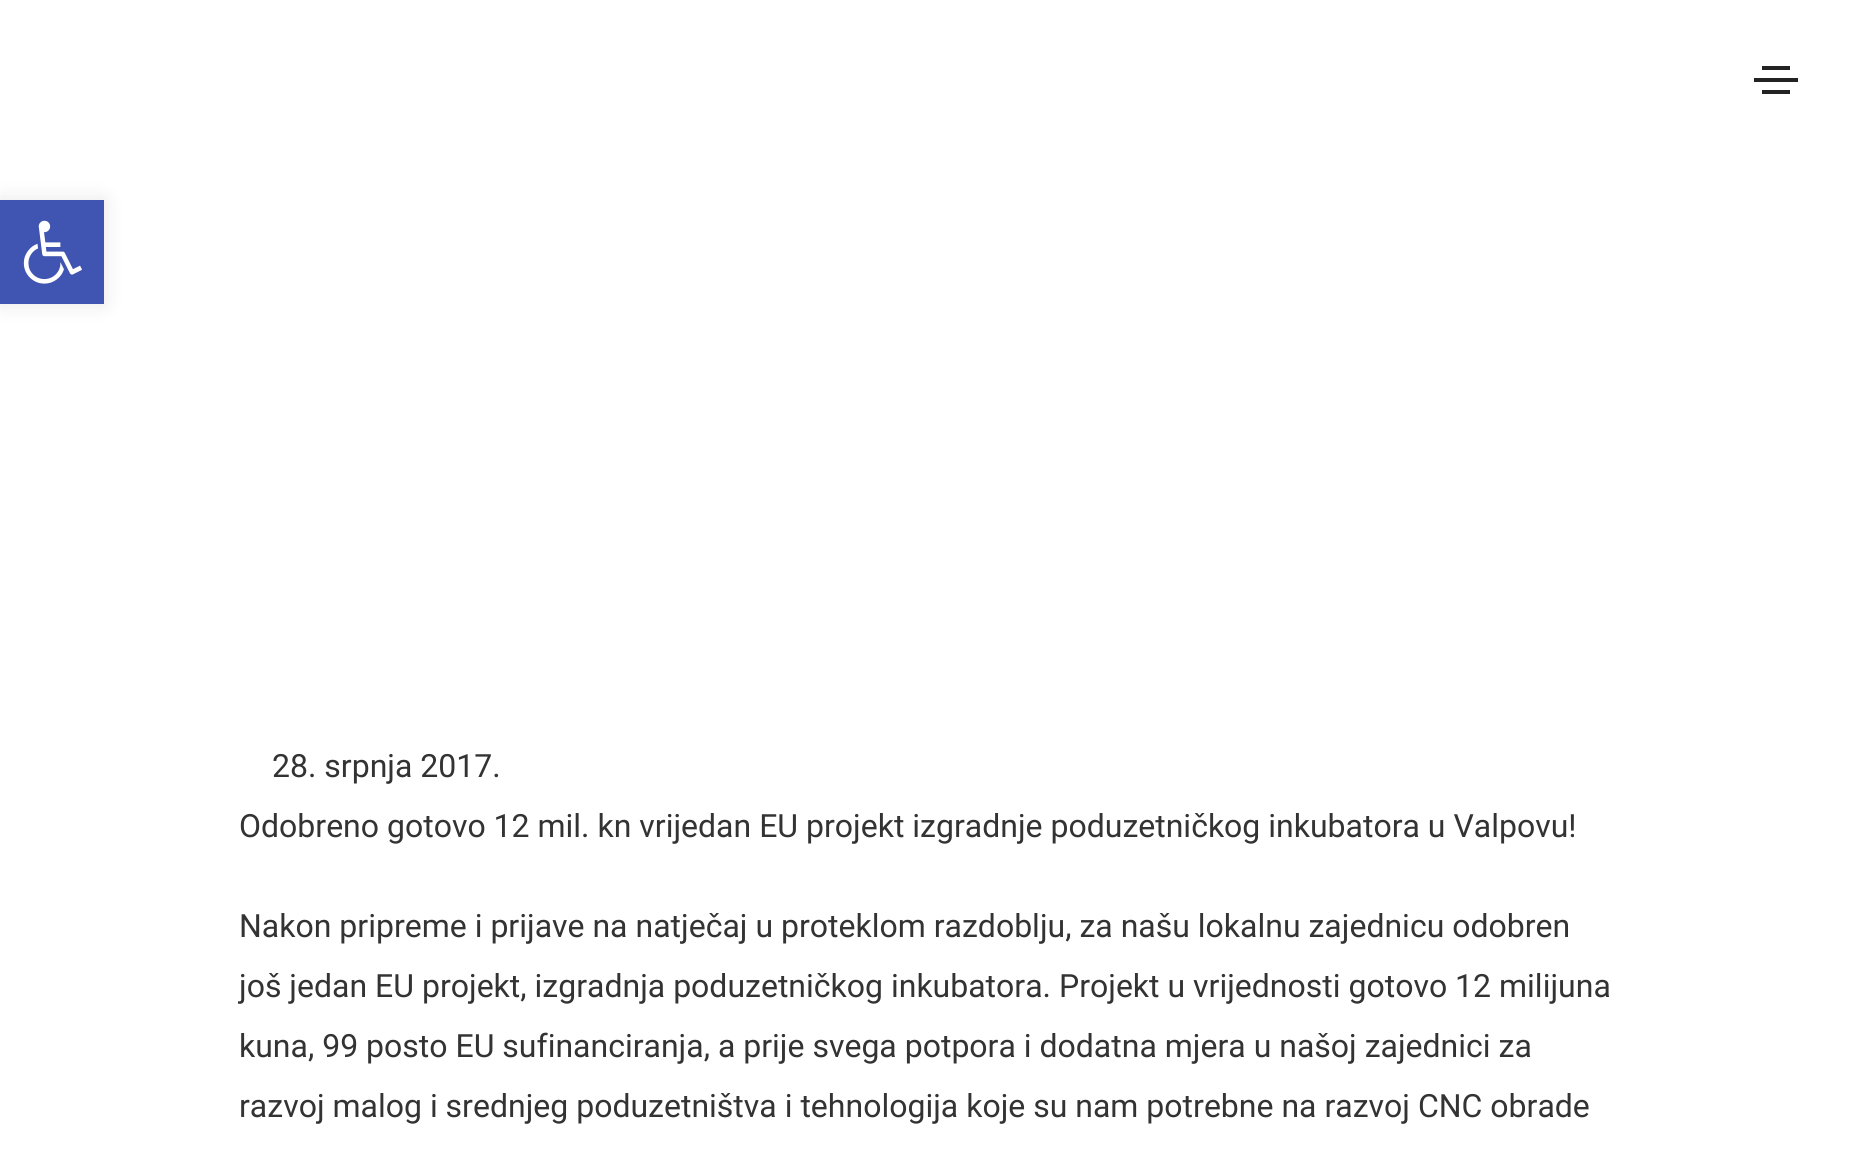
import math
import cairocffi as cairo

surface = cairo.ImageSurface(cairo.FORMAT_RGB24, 1858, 1157)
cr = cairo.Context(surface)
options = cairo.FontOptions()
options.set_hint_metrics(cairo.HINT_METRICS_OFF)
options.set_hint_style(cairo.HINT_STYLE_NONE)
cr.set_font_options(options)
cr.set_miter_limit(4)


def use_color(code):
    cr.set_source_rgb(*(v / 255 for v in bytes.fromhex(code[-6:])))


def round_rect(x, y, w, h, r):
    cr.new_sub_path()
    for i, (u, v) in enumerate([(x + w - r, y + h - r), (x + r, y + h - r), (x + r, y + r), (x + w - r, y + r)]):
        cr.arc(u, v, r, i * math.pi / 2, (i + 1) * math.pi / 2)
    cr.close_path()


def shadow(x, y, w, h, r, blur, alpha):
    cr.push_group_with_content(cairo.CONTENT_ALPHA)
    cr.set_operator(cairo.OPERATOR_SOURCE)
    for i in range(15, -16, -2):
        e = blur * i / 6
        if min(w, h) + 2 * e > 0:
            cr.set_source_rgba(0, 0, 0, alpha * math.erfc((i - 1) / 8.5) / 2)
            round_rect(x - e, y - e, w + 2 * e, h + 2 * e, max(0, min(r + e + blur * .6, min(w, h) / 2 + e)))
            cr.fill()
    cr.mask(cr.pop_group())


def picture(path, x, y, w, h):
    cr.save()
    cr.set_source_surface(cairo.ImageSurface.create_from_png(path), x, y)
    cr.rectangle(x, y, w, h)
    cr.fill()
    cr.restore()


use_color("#ffffff")
cr.paint()
use_color("#232323")
cr.rectangle(1762, 66, 28, 4)
cr.fill()
cr.rectangle(1754, 78, 44, 4)
cr.fill()
cr.rectangle(1762, 90, 28, 4)
cr.fill()
use_color("#000000")
shadow(0, 200, 104, 104, 0, 10, 0.1)
use_color("#4054b2")
cr.rectangle(0, 200, 104, 104)
cr.fill()
picture("img1.png", 23, 220, 59, 64)
cr.select_font_face("Roboto")
cr.set_font_size(32)
use_color("#333333")
cr.move_to(272, 777)
cr.show_text("28. srpnja 2017.")
cr.move_to(239, 837)
cr.show_text("Odobreno gotovo 12 mil. kn vrijedan EU projekt izgradnje poduzetničkog inkubatora u Valpovu!")
cr.move_to(239, 937)
cr.show_text("Nakon pripreme i prijave na natječaj u proteklom razdoblju, za našu lokalnu zajednicu odobren")
cr.move_to(239, 997)
cr.show_text("još jedan EU projekt, izgradnja poduzetničkog inkubatora. Projekt u vrijednosti gotovo 12 milijuna")
cr.move_to(239, 1057)
cr.show_text("kuna, 99 posto EU sufinanciranja, a prije svega potpora i dodatna mjera u našoj zajednici za")
cr.move_to(239, 1117)
cr.show_text("razvoj malog i srednjeg poduzetništva i tehnologija koje su nam potrebne na razvoj CNC obrade")
surface.write_to_png("result.png")
